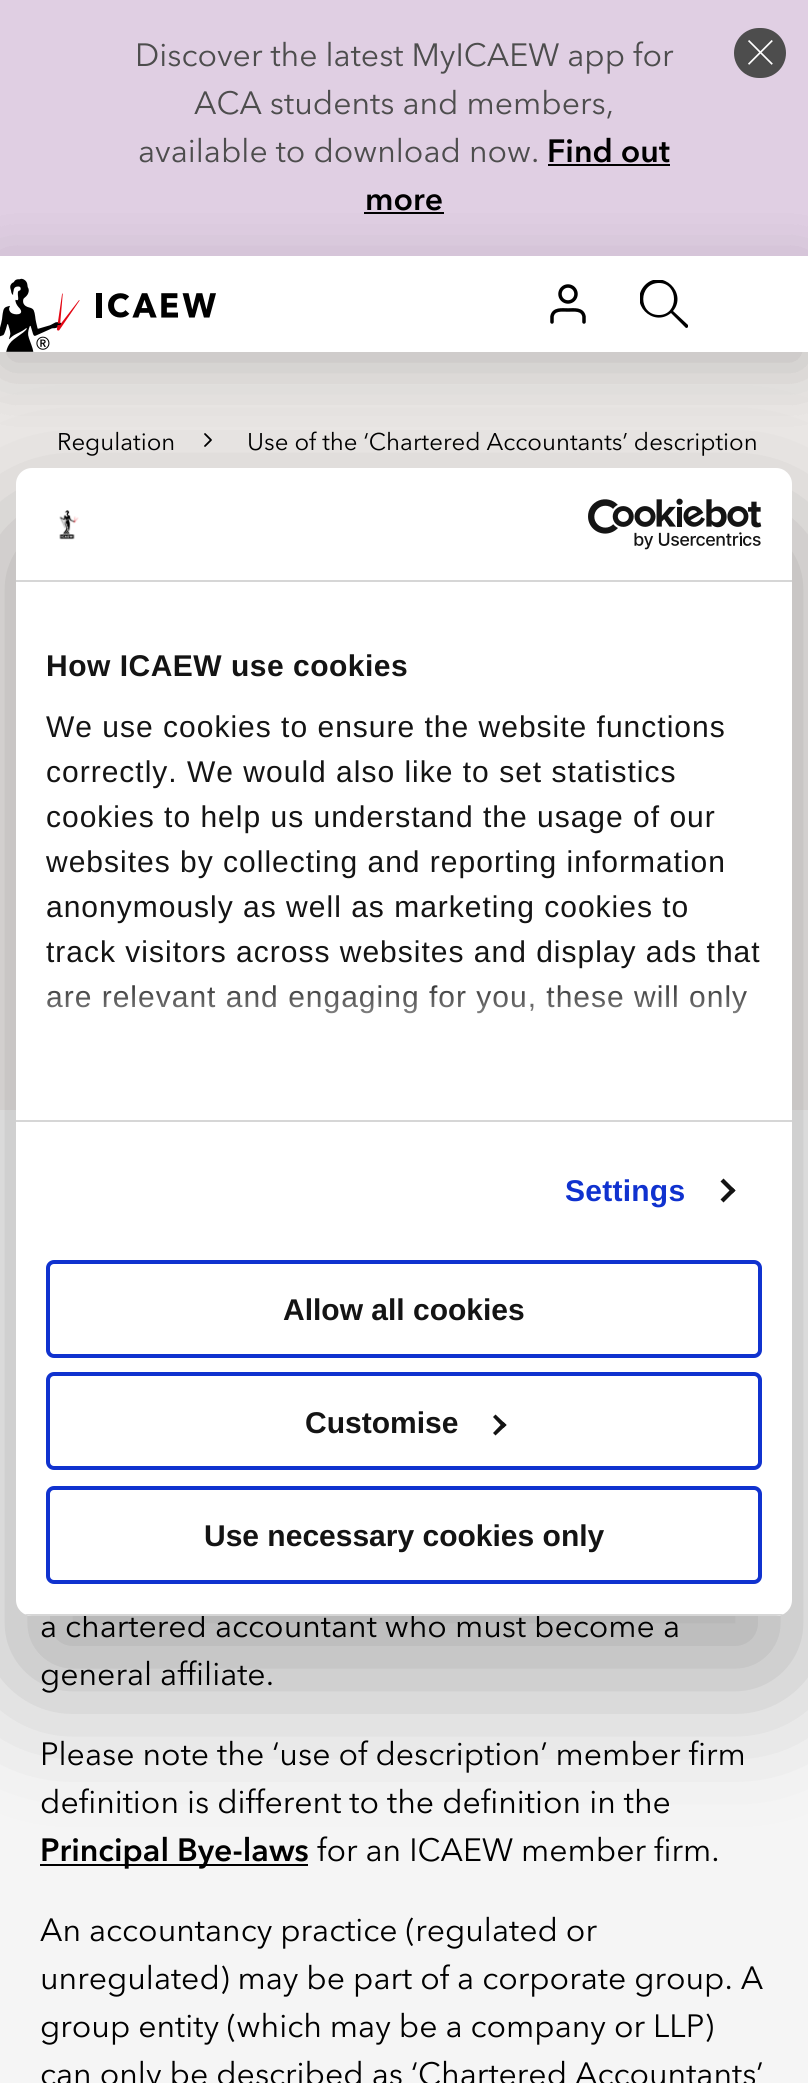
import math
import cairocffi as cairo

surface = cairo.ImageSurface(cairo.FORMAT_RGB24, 808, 2083)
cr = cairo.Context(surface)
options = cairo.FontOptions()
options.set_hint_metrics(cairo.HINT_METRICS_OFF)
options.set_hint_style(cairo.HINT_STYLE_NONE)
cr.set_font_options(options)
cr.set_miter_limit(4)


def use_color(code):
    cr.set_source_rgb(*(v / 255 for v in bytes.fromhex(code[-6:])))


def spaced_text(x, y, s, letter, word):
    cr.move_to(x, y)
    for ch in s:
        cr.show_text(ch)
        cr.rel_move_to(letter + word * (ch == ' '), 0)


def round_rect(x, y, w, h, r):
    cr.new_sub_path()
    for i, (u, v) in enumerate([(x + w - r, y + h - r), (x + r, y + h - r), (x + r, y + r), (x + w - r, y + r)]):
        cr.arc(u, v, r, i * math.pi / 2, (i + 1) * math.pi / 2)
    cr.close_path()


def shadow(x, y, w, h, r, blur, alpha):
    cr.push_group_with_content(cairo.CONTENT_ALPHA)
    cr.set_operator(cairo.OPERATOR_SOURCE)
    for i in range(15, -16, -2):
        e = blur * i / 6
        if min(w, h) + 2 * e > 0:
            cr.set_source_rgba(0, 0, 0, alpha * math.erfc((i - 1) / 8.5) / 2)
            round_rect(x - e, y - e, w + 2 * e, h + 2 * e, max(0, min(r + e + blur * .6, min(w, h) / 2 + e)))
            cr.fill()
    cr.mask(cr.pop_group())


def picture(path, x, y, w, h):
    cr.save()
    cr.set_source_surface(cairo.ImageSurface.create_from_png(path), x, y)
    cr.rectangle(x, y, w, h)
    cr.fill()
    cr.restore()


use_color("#ffffff")
cr.paint()
use_color("#e0cfe3")
cr.rectangle(0, 0, 808, 256)
cr.fill()
cr.select_font_face("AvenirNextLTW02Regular")
cr.set_font_size(32)
use_color("#4d4d4d")
cr.move_to(135, 66)
cr.show_text("Discover the latest MyICAEW app for")
cr.move_to(194, 114)
cr.show_text("ACA students and members,")
cr.move_to(138, 162)
cr.show_text("available to download now.")
cr.select_font_face("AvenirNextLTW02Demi", cairo.FONT_SLANT_NORMAL, cairo.FONT_WEIGHT_BOLD)
use_color("#000000")
cr.move_to(547, 162)
cr.show_text("Find out")
cr.rectangle(548, 164, 122, 2)
cr.fill()
cr.move_to(365, 210)
cr.show_text("more")
cr.rectangle(364, 212, 80, 2)
cr.fill()
use_color("#4d4d4d")
round_rect(734, 28, 52, 50, 25)
cr.fill()
picture("img1.png", 748, 40, 25, 25)
use_color("#ece9e7")
cr.rectangle(0, 352, 808, 758)
cr.fill()
cr.new_path()
cr.move_to(205, 446)
cr.line_to(211, 440)
cr.line_to(205, 434)
use_color("#000000")
cr.set_line_width(1.8)
cr.set_line_cap(cairo.LINE_CAP_ROUND)
cr.set_line_join(cairo.LINE_JOIN_ROUND)
cr.stroke()
cr.save()
cr.set_fill_rule(cairo.FILL_RULE_EVEN_ODD)
cr.new_path()
cr.move_to(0, 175)
cr.line_to(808, 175)
cr.line_to(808, 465)
cr.line_to(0, 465)
cr.close_path()
cr.move_to(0, 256)
cr.line_to(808, 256)
cr.line_to(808, 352)
cr.line_to(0, 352)
cr.close_path()
cr.clip()
use_color("#000000")
shadow(0, 272, 808, 96, 0, 32, 0.1)
shadow(0, 272, 808, 96, 0, 32, 0.1)
cr.restore()
picture("img2.png", 0, 278, 216, 74)
cr.new_path()
cr.move_to(584, 322)
cr.line_to(584, 316.5)
cr.curve_to(582.5, 308.5, 574, 310, 568, 310)
cr.curve_to(562, 310, 553.5, 308.5, 552, 316.5)
cr.line_to(552, 322)
cr.set_line_width(3.5)
cr.stroke()
cr.arc(568, 294, 8, 0, 2 * math.pi)
cr.set_line_cap(cairo.LINE_CAP_BUTT)
cr.set_line_join(cairo.LINE_JOIN_MITER)
cr.stroke()
cr.save()
cr.rectangle(640, 280, 48, 48)
cr.clip()
cr.new_path()
cr.move_to(688, 325)
cr.line_to(673, 311)
cr.curve_to(688, 293, 662, 268, 645, 285)
cr.curve_to(628, 303, 653, 328, 671, 313)
cr.line_to(686, 328)
cr.curve_to(688, 328, 689, 326, 688, 325)
cr.close_path()
cr.move_to(659, 315)
cr.curve_to(638, 315, 638, 283, 659, 283)
cr.curve_to(679, 283, 679, 315, 659, 315)
cr.close_path()
cr.fill()
cr.restore()
cr.select_font_face("AvenirNextLTW02Regular")
cr.set_font_size(24)
cr.move_to(57, 450)
cr.show_text("Regulation")
cr.move_to(247, 450)
cr.show_text("Use of the ‘Chartered Accountants’ description")
use_color("#f5f5f5")
cr.rectangle(0, 1110, 808, 973)
cr.fill()
cr.set_font_size(32)
use_color("#000000")
cr.move_to(40, 1637)
cr.show_text("a chartered accountant who must become a")
cr.move_to(40, 1685)
cr.show_text("general affiliate.")
cr.move_to(40, 1765)
cr.show_text("Please note the ‘use of description’ member firm")
cr.move_to(40, 1813)
cr.show_text("definition is different to the definition in the")
cr.rectangle(40, 1864, 268, 2)
cr.fill()
cr.select_font_face("AvenirNextLTW02Demi", cairo.FONT_SLANT_NORMAL, cairo.FONT_WEIGHT_BOLD)
cr.move_to(40, 1861)
cr.show_text("Principal Bye-laws")
cr.select_font_face("AvenirNextLTW02Regular")
cr.move_to(317, 1861)
cr.show_text("for an ICAEW member firm.")
cr.move_to(40, 1941)
cr.show_text("An accountancy practice (regulated or")
cr.move_to(40, 1989)
cr.show_text("unregulated) may be part of a corporate group. A")
cr.move_to(40, 2037)
cr.show_text("group entity (which may be a company or LLP)")
cr.move_to(40, 2085)
cr.show_text("can only be described as ‘Chartered Accountants’")
use_color("#000000")
shadow(16, 532, 776, 1148, 16, 68, 0.3)
use_color("#ffffff")
round_rect(16, 468, 776, 1148, 16)
cr.fill()
use_color("#d6d6d6")
cr.rectangle(16, 580, 776, 2)
cr.fill()
picture("img3.png", 59, 510, 20, 30)
picture("img4.png", 588, 498, 174, 52)
cr.rectangle(16, 1120, 776, 2)
cr.fill()
cr.select_font_face("Liberation Sans", cairo.FONT_SLANT_NORMAL, cairo.FONT_WEIGHT_BOLD)
cr.set_font_size(30)
use_color("#141414")
spaced_text(46, 676, "How ICAEW use cookies", 0.5, 0)
cr.select_font_face("Liberation Sans")
spaced_text(46, 737, "We use cookies to ensure the website functions", 1, 0)
spaced_text(46, 782, "correctly. We would also like to set statistics", 1, 0)
spaced_text(46, 827, "cookies to help us understand the usage of our", 1, 0)
spaced_text(46, 872, "websites by collecting and reporting information", 1, 0)
spaced_text(46, 917, "anonymously as well as marketing cookies to", 1, 0)
spaced_text(46, 962, "track visitors across websites and display ads that", 1, 0)
spaced_text(46, 1007, "are relevant and engaging for you, these will only", 1, 0)
gradient = cairo.LinearGradient(391, 1121, 391, 971)
gradient.add_color_stop_rgba(0, 1, 1, 1, 1)
gradient.add_color_stop_rgba(0.5, 1, 1, 1, 0.8)
gradient.add_color_stop_rgba(1, 1, 1, 1, 0)
cr.set_source(gradient)
cr.rectangle(47, 985, 700, 29)
cr.fill()
cr.select_font_face("Liberation Sans", cairo.FONT_SLANT_NORMAL, cairo.FONT_WEIGHT_BOLD)
use_color("#1032cf")
spaced_text(565, 1201, "Settings", 0.25, 0)
use_color("#141414")
cr.new_path()
cr.move_to(723.5, 1178.5)
cr.line_to(735.5, 1190.5)
cr.line_to(732.5, 1193.5)
cr.line_to(720.5, 1181.5)
cr.close_path()
cr.fill()
cr.new_path()
cr.move_to(732.5, 1187.5)
cr.line_to(735.5, 1190.5)
cr.line_to(723.5, 1202.5)
cr.line_to(720.5, 1199.5)
cr.close_path()
cr.fill()
cr.save()
round_rect(16, 468, 776, 1148, 16)
cr.clip()
use_color("#d6d6d6")
cr.rectangle(16, 1614, 776, 2)
cr.fill()
cr.restore()
round_rect(48, 1262, 712, 94, 6)
use_color("#1032cf")
cr.set_line_width(4)
cr.stroke()
use_color("#141414")
cr.move_to(283, 1320)
cr.show_text("Allow all cookies")
round_rect(48, 1374, 712, 94, 6)
use_color("#1032cf")
cr.stroke()
use_color("#141414")
cr.move_to(305, 1433)
cr.show_text("Customise")
cr.new_path()
cr.move_to(495.5, 1414.5)
cr.line_to(506.5, 1425)
cr.line_to(503.5, 1428)
cr.line_to(493, 1417)
cr.close_path()
cr.fill()
cr.new_path()
cr.move_to(503.5, 1422)
cr.line_to(506.5, 1425)
cr.line_to(495.5, 1435.5)
cr.line_to(493, 1433)
cr.close_path()
cr.fill()
round_rect(48, 1488, 712, 94, 6)
use_color("#1032cf")
cr.stroke()
use_color("#141414")
cr.move_to(204, 1546)
cr.show_text("Use necessary cookies only")
surface.write_to_png("result.png")
